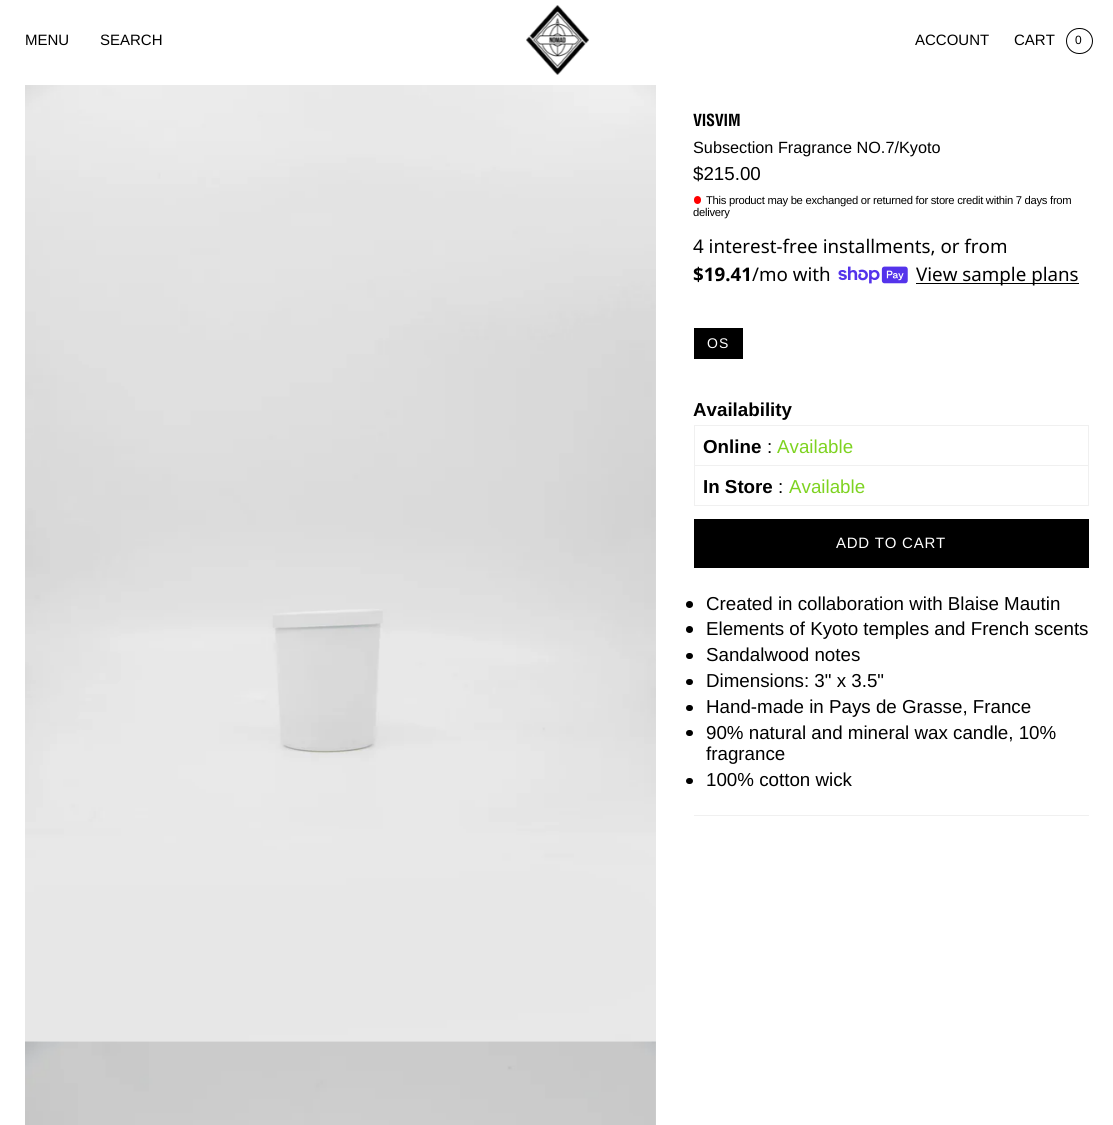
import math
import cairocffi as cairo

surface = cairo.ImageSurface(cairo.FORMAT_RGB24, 1113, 1125)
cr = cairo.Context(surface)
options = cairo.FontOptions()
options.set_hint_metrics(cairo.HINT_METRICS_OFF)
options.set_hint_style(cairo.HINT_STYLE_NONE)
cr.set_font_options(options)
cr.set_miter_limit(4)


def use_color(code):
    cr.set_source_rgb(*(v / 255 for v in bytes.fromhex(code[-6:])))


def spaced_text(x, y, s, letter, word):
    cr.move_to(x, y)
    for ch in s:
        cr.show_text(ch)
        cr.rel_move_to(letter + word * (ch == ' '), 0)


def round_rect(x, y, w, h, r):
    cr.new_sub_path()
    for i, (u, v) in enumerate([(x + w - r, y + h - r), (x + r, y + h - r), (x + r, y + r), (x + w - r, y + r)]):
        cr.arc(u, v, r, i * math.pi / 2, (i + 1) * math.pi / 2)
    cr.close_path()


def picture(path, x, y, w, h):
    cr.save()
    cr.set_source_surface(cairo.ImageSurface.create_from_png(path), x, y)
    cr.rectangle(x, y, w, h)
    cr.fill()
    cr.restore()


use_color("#ffffff")
cr.paint()
cr.select_font_face("Liberation Sans")
cr.set_font_size(15)
use_color("#000000")
cr.move_to(25, 45)
cr.show_text("MENU")
cr.move_to(100, 45)
cr.show_text("SEARCH")
picture("img1.png", 526, 5, 63, 70)
cr.move_to(915, 45)
cr.show_text("ACCOUNT")
cr.move_to(1014, 45)
cr.show_text("CART")
round_rect(1066.5, 28.5, 26, 25, 12.5)
cr.set_line_width(1)
cr.stroke()
cr.set_font_size(12)
cr.move_to(1075, 44)
cr.show_text("0")
picture("img2.png", 25, 85, 631, 956)
picture("img3.png", 25, 1041, 631, 84)
cr.select_font_face("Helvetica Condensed", cairo.FONT_SLANT_NORMAL, cairo.FONT_WEIGHT_BOLD)
cr.set_font_size(16.25)
spaced_text(693, 126, "VISVIM", -0.25, 0)
cr.select_font_face("Liberation Sans")
cr.move_to(693, 153)
cr.show_text("Subsection Fragrance NO.7/Kyoto")
cr.set_font_size(18.75)
cr.move_to(693, 180)
cr.show_text("$215.00")
use_color("#ff0000")
round_rect(694, 196, 7, 8, 3.5)
cr.fill()
cr.set_font_size(11.25)
use_color("#000000")
spaced_text(706, 204, "This product may be exchanged or returned for store credit within 7 days from", -0.28, 0)
spaced_text(693, 216, "delivery", -0.28, 0)
cr.select_font_face("Noto Sans")
cr.set_font_size(18.75)
cr.move_to(693, 253)
cr.show_text("4 interest-free installments, or from")
cr.select_font_face("Noto Sans", cairo.FONT_SLANT_NORMAL, cairo.FONT_WEIGHT_BOLD)
cr.move_to(693, 281)
cr.show_text("$19.41")
cr.select_font_face("Noto Sans")
cr.move_to(752, 281)
cr.show_text("/mo with")
picture("img4.png", 838, 266, 70, 18)
cr.rectangle(916, 283, 163, 1)
cr.fill()
cr.move_to(916, 281)
cr.show_text("View sample plans")
cr.rectangle(694, 328, 49, 31)
cr.fill()
cr.select_font_face("Liberation Sans")
cr.set_font_size(14)
use_color("#ffffff")
spaced_text(707, 348, "OS", 1, 0)
cr.select_font_face("Liberation Sans", cairo.FONT_SLANT_NORMAL, cairo.FONT_WEIGHT_BOLD)
cr.set_font_size(18.75)
use_color("#000000")
cr.move_to(693, 416)
cr.show_text("Availability")
cr.rectangle(694.5, 425.5, 394, 80)
use_color("#f0f0f0")
cr.stroke()
cr.rectangle(695, 465, 393, 1)
cr.fill()
use_color("#000000")
cr.move_to(703, 453)
cr.show_text("Online")
cr.select_font_face("Liberation Sans")
cr.move_to(767, 453)
cr.show_text(":")
use_color("#7ed321")
cr.move_to(777, 453)
cr.show_text("Available")
cr.select_font_face("Liberation Sans", cairo.FONT_SLANT_NORMAL, cairo.FONT_WEIGHT_BOLD)
use_color("#000000")
cr.move_to(703, 493)
cr.show_text("In Store")
cr.select_font_face("Liberation Sans")
cr.move_to(778, 493)
cr.show_text(":")
use_color("#7ed321")
cr.move_to(789, 493)
cr.show_text("Available")
use_color("#000000")
cr.rectangle(694, 519, 395, 49)
cr.fill()
cr.set_font_size(15)
use_color("#ffffff")
spaced_text(836, 548, "ADD TO CART", 0.75, 0)
use_color("#000000")
cr.new_path()
cr.move_to(881.5, 543)
cr.line_to(882, 542)
cr.line_to(889, 549.5)
cr.line_to(888.5, 550)
cr.close_path()
cr.fill()
cr.arc(689.5, 604.5, 3.5, 0, 2 * math.pi)
cr.fill()
cr.set_font_size(18.75)
cr.move_to(706, 610)
cr.show_text("Created in collaboration with Blaise Mautin")
cr.new_path()
cr.arc(689.5, 629.5, 3.5, 0, 2 * math.pi)
cr.fill()
cr.move_to(706, 635)
cr.show_text("Elements of Kyoto temples and French scents")
round_rect(686, 653, 7, 6, 3)
cr.fill()
cr.move_to(706, 661)
cr.show_text("Sandalwood notes")
round_rect(686, 679, 7, 6, 3)
cr.fill()
cr.move_to(706, 687)
cr.show_text("Dimensions: 3\" x 3.5\"")
round_rect(686, 705, 7, 6, 3)
cr.fill()
cr.move_to(706, 713)
cr.show_text("Hand-made in Pays de Grasse, France")
round_rect(686, 730, 7, 6, 3)
cr.fill()
cr.move_to(706, 739)
cr.show_text("90% natural and mineral wax candle, 10%")
cr.move_to(706, 760)
cr.show_text("fragrance")
round_rect(686, 778, 7, 6, 3)
cr.fill()
cr.move_to(706, 786)
cr.show_text("100% cotton wick")
use_color("#f0f0f0")
cr.rectangle(694, 815, 395, 1)
cr.fill()
surface.write_to_png("result.png")
